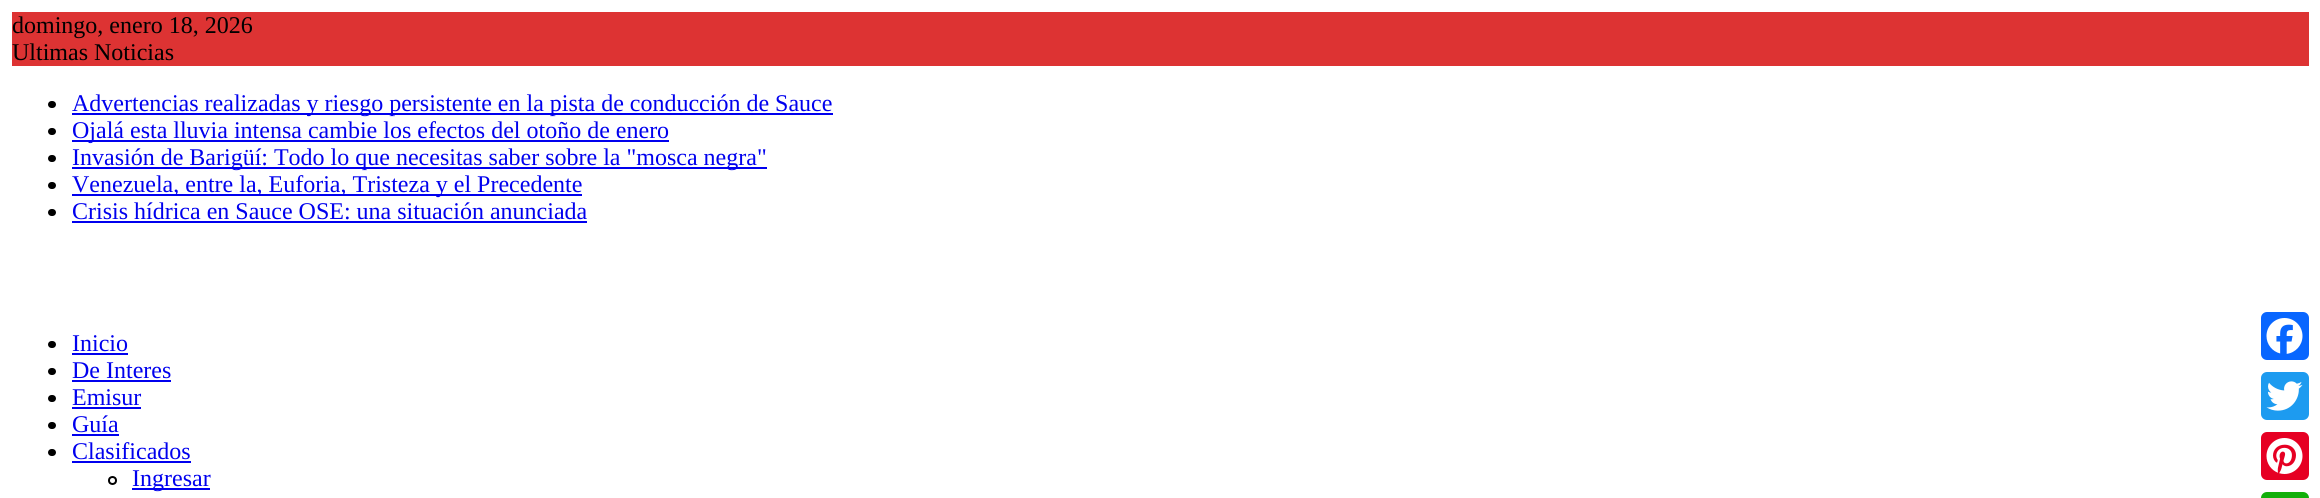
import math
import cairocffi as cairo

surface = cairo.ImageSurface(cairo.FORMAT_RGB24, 2320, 498)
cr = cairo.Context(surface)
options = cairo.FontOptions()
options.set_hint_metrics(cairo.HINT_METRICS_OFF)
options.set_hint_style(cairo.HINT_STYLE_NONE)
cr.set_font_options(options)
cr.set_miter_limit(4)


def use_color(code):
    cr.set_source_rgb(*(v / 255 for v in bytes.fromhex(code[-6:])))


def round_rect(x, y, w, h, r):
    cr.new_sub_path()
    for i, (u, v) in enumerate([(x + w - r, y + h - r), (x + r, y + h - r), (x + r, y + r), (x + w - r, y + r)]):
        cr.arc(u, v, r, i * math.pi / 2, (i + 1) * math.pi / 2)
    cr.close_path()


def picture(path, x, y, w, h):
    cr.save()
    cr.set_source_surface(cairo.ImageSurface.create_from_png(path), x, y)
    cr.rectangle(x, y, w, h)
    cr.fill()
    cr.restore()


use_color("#ffffff")
cr.paint()
use_color("#dd3333")
cr.rectangle(12, 12, 2297, 54)
cr.fill()
cr.select_font_face("Liberation Serif")
cr.set_font_size(24)
use_color("#000000")
cr.move_to(12, 33)
cr.show_text("domingo, enero 18, 2026")
cr.move_to(12, 60)
cr.show_text("Ultimas Noticias")
round_rect(48, 101, 8, 7, 3.5)
cr.fill()
use_color("#0000ee")
cr.rectangle(72, 113, 761, 2)
cr.fill()
cr.move_to(72, 111)
cr.show_text("Advertencias realizadas y riesgo persistente en la pista de conducción de Sauce")
use_color("#000000")
round_rect(48, 128, 8, 7, 3.5)
cr.fill()
use_color("#0000ee")
cr.rectangle(72, 140, 597, 2)
cr.fill()
cr.move_to(72, 138)
cr.show_text("Ojalá esta lluvia intensa cambie los efectos del otoño de enero")
use_color("#000000")
round_rect(48, 155, 8, 7, 3.5)
cr.fill()
use_color("#0000ee")
cr.rectangle(72, 167, 695, 2)
cr.fill()
cr.move_to(72, 165)
cr.show_text("Invasión de Barigüí: Todo lo que necesitas saber sobre la \"mosca negra\"")
use_color("#000000")
round_rect(48, 182, 8, 7, 3.5)
cr.fill()
use_color("#0000ee")
cr.rectangle(72, 194, 510, 2)
cr.fill()
cr.move_to(72, 192)
cr.show_text("Venezuela, entre la, Euforia, Tristeza y el Precedente")
use_color("#000000")
round_rect(48, 209, 8, 7, 3.5)
cr.fill()
use_color("#0000ee")
cr.move_to(72, 219)
cr.show_text("Crisis hídrica en Sauce OSE: una situación anunciada")
cr.rectangle(72, 221, 515, 2)
cr.fill()
use_color("#000000")
round_rect(48, 341, 8, 7, 3.5)
cr.fill()
use_color("#0000ee")
cr.move_to(72, 351)
cr.show_text("Inicio")
cr.rectangle(72, 353, 56, 2)
cr.fill()
use_color("#000000")
round_rect(48, 368, 8, 7, 3.5)
cr.fill()
use_color("#0000ee")
cr.move_to(72, 378)
cr.show_text("De Interes")
cr.rectangle(72, 380, 99, 2)
cr.fill()
use_color("#000000")
round_rect(48, 395, 8, 7, 3.5)
cr.fill()
use_color("#0000ee")
cr.move_to(72, 405)
cr.show_text("Emisur")
cr.rectangle(72, 407, 69, 2)
cr.fill()
use_color("#000000")
round_rect(48, 422, 8, 7, 3.5)
cr.fill()
use_color("#0000ee")
cr.move_to(72, 432)
cr.show_text("Guía")
cr.rectangle(72, 434, 47, 2)
cr.fill()
use_color("#000000")
round_rect(48, 449, 8, 7, 3.5)
cr.fill()
use_color("#0000ee")
cr.move_to(72, 459)
cr.show_text("Clasificados")
cr.rectangle(72, 461, 119, 2)
cr.fill()
cr.arc(112.5, 480.5, 3.5, 0, 2 * math.pi)
use_color("#000000")
cr.stroke()
use_color("#0000ee")
cr.rectangle(132, 488, 78, 2)
cr.fill()
cr.move_to(132, 486)
cr.show_text("Ingresar")
use_color("#0866ff")
round_rect(2261, 312, 48, 48, 6)
cr.fill()
picture("img1.png", 2266, 318, 37, 36)
use_color("#1d9bf0")
round_rect(2261, 372, 48, 48, 6)
cr.fill()
picture("img2.png", 2266, 381, 37, 30)
use_color("#e60023")
round_rect(2261, 432, 48, 48, 6)
cr.fill()
picture("img3.png", 2266, 438, 37, 36)
use_color("#12af0a")
round_rect(2261, 492, 48, 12, 6)
cr.fill()
surface.write_to_png("result.png")
